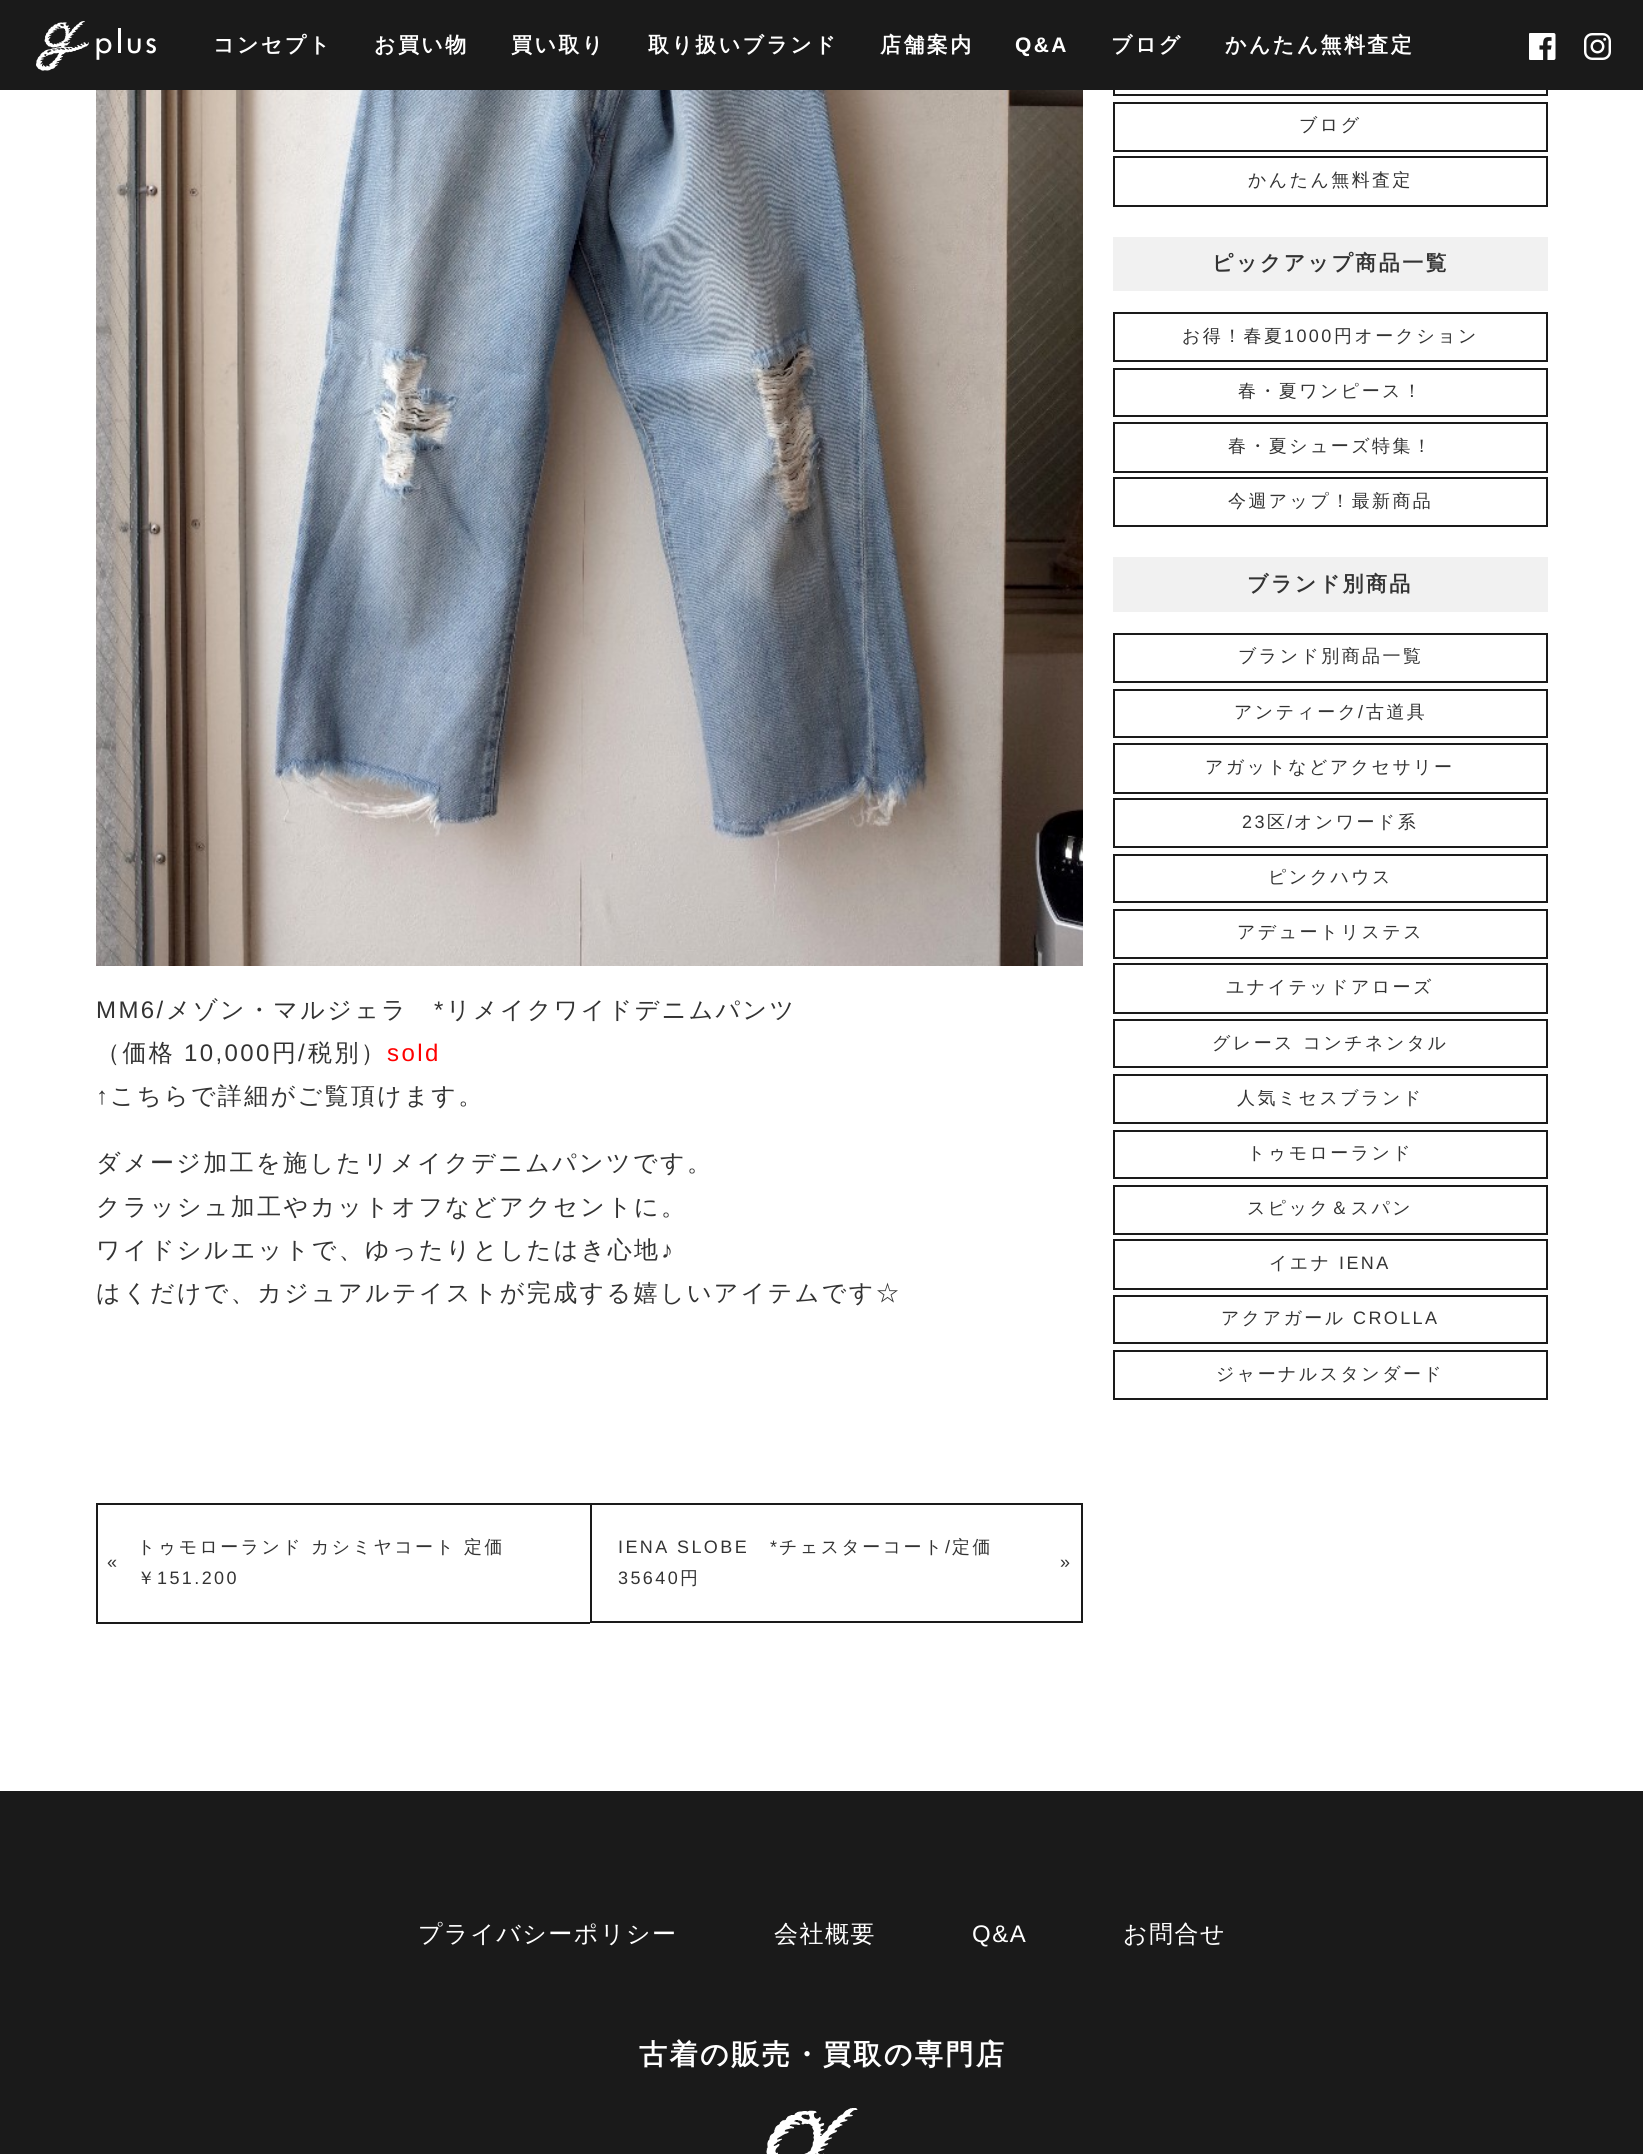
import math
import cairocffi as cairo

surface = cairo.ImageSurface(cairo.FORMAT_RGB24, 1643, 2154)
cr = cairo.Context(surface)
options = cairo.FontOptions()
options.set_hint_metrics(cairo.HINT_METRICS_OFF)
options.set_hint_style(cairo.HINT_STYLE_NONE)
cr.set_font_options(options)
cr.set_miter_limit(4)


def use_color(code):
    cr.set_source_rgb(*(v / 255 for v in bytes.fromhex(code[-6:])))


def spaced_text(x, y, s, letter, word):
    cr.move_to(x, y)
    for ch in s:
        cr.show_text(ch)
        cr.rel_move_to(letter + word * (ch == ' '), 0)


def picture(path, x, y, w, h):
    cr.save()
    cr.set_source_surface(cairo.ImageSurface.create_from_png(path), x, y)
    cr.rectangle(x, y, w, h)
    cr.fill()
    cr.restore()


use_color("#ffffff")
cr.paint()
cr.rectangle(1114, 48, 433, 47)
use_color("#1a1a1a")
cr.stroke()
cr.rectangle(0, 0, 1643, 90)
cr.fill()
picture("img1.png", 36, 21, 120, 50)
cr.select_font_face("WenQuanYi Zen Hei", cairo.FONT_SLANT_NORMAL, cairo.FONT_WEIGHT_BOLD)
cr.set_font_size(21)
use_color("#ffffff")
spaced_text(213, 52, "コンセプト", 2.4, 0)
spaced_text(374, 52, "お買い物", 2.4, 0)
spaced_text(511, 52, "買い取り", 2.4, 0)
spaced_text(648, 52, "取り扱いブランド", 2.4, 0)
spaced_text(880, 52, "店舗案内", 2.4, 0)
cr.select_font_face("Liberation Sans", cairo.FONT_SLANT_NORMAL, cairo.FONT_WEIGHT_BOLD)
spaced_text(1015, 52, "Q&A", 2.4, 0)
cr.select_font_face("WenQuanYi Zen Hei", cairo.FONT_SLANT_NORMAL, cairo.FONT_WEIGHT_BOLD)
spaced_text(1111, 52, "ブログ", 2.4, 0)
spaced_text(1225, 52, "かんたん無料査定", 2.4, 0)
picture("img2.png", 1529, 33, 27, 27)
picture("img3.png", 1584, 33, 27, 27)
picture("img4.png", 96, 90, 987, 876)
cr.select_font_face("Liberation Sans")
cr.set_font_size(24)
use_color("#333333")
spaced_text(96, 1018, "MM6/", 2.4, 0)
cr.select_font_face("WenQuanYi Zen Hei Medium")
spaced_text(166, 1018, "メゾン・マルジェラ", 2.4, 0)
cr.select_font_face("Liberation Sans")
spaced_text(434, 1018, "*", 2.4, 0)
cr.select_font_face("WenQuanYi Zen Hei Medium")
spaced_text(446, 1018, "リメイクワイドデニムパンツ", 2.4, 0)
spaced_text(96, 1061, "（価格", 2.4, 0)
cr.select_font_face("Liberation Sans")
spaced_text(184, 1061, "10,000", 2.4, 0)
cr.select_font_face("WenQuanYi Zen Hei Medium")
spaced_text(272, 1061, "円", 2.4, 0)
cr.select_font_face("Liberation Sans")
spaced_text(298, 1061, "/", 2.4, 0)
cr.select_font_face("WenQuanYi Zen Hei Medium")
spaced_text(308, 1061, "税別）", 2.4, 0)
cr.select_font_face("Liberation Sans")
use_color("#ff0000")
spaced_text(387, 1061, "sold", 2.4, 0)
use_color("#333333")
spaced_text(96, 1104, "↑", 2.4, 0)
cr.select_font_face("WenQuanYi Zen Hei Medium")
spaced_text(110, 1104, "こちらで詳細がご覧頂けます。", 2.4, 0)
spaced_text(96, 1171, "ダメージ加工を施したリメイクデニムパンツです。", 2.4, 0)
spaced_text(96, 1215, "クラッシュ加工やカットオフなどアクセントに。", 2.4, 0)
spaced_text(96, 1258, "ワイドシルエットで、ゆったりとしたはき心地", 2.4, 0)
cr.select_font_face("Liberation Sans")
spaced_text(661, 1258, "♪", 2.4, 0)
cr.select_font_face("WenQuanYi Zen Hei Medium")
spaced_text(96, 1301, "はくだけで、カジュアルテイストが完成する嬉しいアイテムです☆", 2.4, 0)
use_color("#1a1a1a")
cr.rectangle(96, 1503, 494, 2)
cr.fill()
cr.rectangle(96, 1622, 494, 2)
cr.fill()
cr.rectangle(96, 1503, 2, 120)
cr.fill()
cr.select_font_face("Liberation Sans")
cr.set_font_size(18)
use_color("#333333")
spaced_text(107, 1568, "«", 2.4, 0)
cr.select_font_face("WenQuanYi Zen Hei Medium")
spaced_text(137, 1553, "トゥモローランド カシミヤコート 定価", 2.4, 0)
spaced_text(137, 1584, "￥", 2.4, 0)
cr.select_font_face("Liberation Sans")
spaced_text(157, 1584, "151.200", 2.4, 0)
cr.rectangle(591, 1504, 491, 118)
use_color("#1a1a1a")
cr.stroke()
use_color("#333333")
spaced_text(618, 1553, "IENA SLOBE", 2.4, 0)
spaced_text(770, 1553, "*", 2.4, 0)
cr.select_font_face("WenQuanYi Zen Hei Medium")
spaced_text(779, 1553, "チェスターコート", 2.4, 0)
cr.select_font_face("Liberation Sans")
spaced_text(945, 1553, "/", 2.4, 0)
cr.select_font_face("WenQuanYi Zen Hei Medium")
spaced_text(952, 1553, "定価", 2.4, 0)
cr.select_font_face("Liberation Sans")
spaced_text(618, 1584, "35640", 2.4, 0)
cr.select_font_face("WenQuanYi Zen Hei Medium")
spaced_text(680, 1584, "円", 2.4, 0)
cr.select_font_face("Liberation Sans")
spaced_text(1060, 1568, "»", 2.4, 0)
cr.rectangle(1114, 103, 433, 48)
use_color("#1a1a1a")
cr.stroke()
cr.select_font_face("WenQuanYi Zen Hei Medium")
use_color("#333333")
spaced_text(1299, 131, "ブログ", 2.4, 0)
cr.rectangle(1114, 157, 433, 49)
use_color("#1a1a1a")
cr.stroke()
use_color("#333333")
spaced_text(1248, 186, "かんたん無料査定", 2.4, 0)
use_color("#f1f1f1")
cr.rectangle(1113, 237, 435, 54)
cr.fill()
cr.select_font_face("WenQuanYi Zen Hei", cairo.FONT_SLANT_NORMAL, cairo.FONT_WEIGHT_BOLD)
cr.set_font_size(21)
use_color("#333333")
spaced_text(1212, 270, "ピックアップ商品一覧", 2.4, 0)
cr.rectangle(1114, 313, 433, 48)
use_color("#1a1a1a")
cr.stroke()
cr.select_font_face("WenQuanYi Zen Hei Medium")
cr.set_font_size(18)
use_color("#333333")
spaced_text(1182, 342, "お得！春夏", 2.4, 0)
cr.select_font_face("Liberation Sans")
spaced_text(1284, 342, "1000", 2.4, 0)
cr.select_font_face("WenQuanYi Zen Hei Medium")
spaced_text(1334, 342, "円オークション", 2.4, 0)
cr.rectangle(1114, 369, 433, 47)
use_color("#1a1a1a")
cr.stroke()
use_color("#333333")
spaced_text(1238, 397, "春・夏ワンピース！", 2.4, 0)
cr.rectangle(1114, 423, 433, 49)
use_color("#1a1a1a")
cr.stroke()
use_color("#333333")
spaced_text(1228, 452, "春・夏シューズ特集！", 2.4, 0)
cr.rectangle(1114, 478, 433, 48)
use_color("#1a1a1a")
cr.stroke()
use_color("#333333")
spaced_text(1228, 507, "今週アップ！最新商品", 2.4, 0)
use_color("#f1f1f1")
cr.rectangle(1113, 557, 435, 55)
cr.fill()
cr.select_font_face("WenQuanYi Zen Hei", cairo.FONT_SLANT_NORMAL, cairo.FONT_WEIGHT_BOLD)
cr.set_font_size(21)
use_color("#333333")
spaced_text(1247, 591, "ブランド別商品", 2.4, 0)
cr.rectangle(1114, 634, 433, 48)
use_color("#1a1a1a")
cr.stroke()
cr.select_font_face("WenQuanYi Zen Hei Medium")
cr.set_font_size(18)
use_color("#333333")
spaced_text(1238, 662, "ブランド別商品一覧", 2.4, 0)
cr.rectangle(1114, 690, 433, 47)
use_color("#1a1a1a")
cr.stroke()
use_color("#333333")
spaced_text(1234, 718, "アンティーク", 2.4, 0)
cr.select_font_face("Liberation Sans")
spaced_text(1358, 718, "/", 2.4, 0)
cr.select_font_face("WenQuanYi Zen Hei Medium")
spaced_text(1366, 718, "古道具", 2.4, 0)
cr.rectangle(1114, 744, 433, 49)
use_color("#1a1a1a")
cr.stroke()
use_color("#333333")
spaced_text(1205, 773, "アガットなどアクセサリー", 2.4, 0)
cr.rectangle(1114, 799, 433, 48)
use_color("#1a1a1a")
cr.stroke()
cr.select_font_face("Liberation Sans")
use_color("#333333")
spaced_text(1242, 828, "23", 2.4, 0)
cr.select_font_face("WenQuanYi Zen Hei Medium")
spaced_text(1267, 828, "区", 2.4, 0)
cr.select_font_face("Liberation Sans")
spaced_text(1287, 828, "/", 2.4, 0)
cr.select_font_face("WenQuanYi Zen Hei Medium")
spaced_text(1294, 828, "オンワード系", 2.4, 0)
cr.rectangle(1114, 855, 433, 47)
use_color("#1a1a1a")
cr.stroke()
use_color("#333333")
spaced_text(1268, 883, "ピンクハウス", 2.4, 0)
cr.rectangle(1114, 910, 433, 48)
use_color("#1a1a1a")
cr.stroke()
use_color("#333333")
spaced_text(1237, 938, "アデュートリステス", 2.4, 0)
cr.rectangle(1114, 964, 433, 49)
use_color("#1a1a1a")
cr.stroke()
use_color("#333333")
spaced_text(1226, 993, "ユナイテッドアローズ", 2.4, 0)
cr.rectangle(1114, 1020, 433, 47)
use_color("#1a1a1a")
cr.stroke()
use_color("#333333")
spaced_text(1212, 1049, "グレース コンチネンタル", 2.4, 0)
cr.rectangle(1114, 1075, 433, 48)
use_color("#1a1a1a")
cr.stroke()
use_color("#333333")
spaced_text(1237, 1104, "人気ミセスブランド", 2.4, 0)
cr.rectangle(1114, 1131, 433, 47)
use_color("#1a1a1a")
cr.stroke()
use_color("#333333")
spaced_text(1247, 1159, "トゥモローランド", 2.4, 0)
cr.rectangle(1114, 1186, 433, 48)
use_color("#1a1a1a")
cr.stroke()
use_color("#333333")
spaced_text(1247, 1214, "スピック＆スパン", 2.4, 0)
cr.rectangle(1114, 1240, 433, 49)
use_color("#1a1a1a")
cr.stroke()
use_color("#333333")
spaced_text(1269, 1269, "イエナ", 2.4, 0)
cr.select_font_face("Liberation Sans")
spaced_text(1339, 1269, "IENA", 2.4, 0)
cr.rectangle(1114, 1296, 433, 47)
use_color("#1a1a1a")
cr.stroke()
cr.select_font_face("WenQuanYi Zen Hei Medium")
use_color("#333333")
spaced_text(1221, 1324, "アクアガール", 2.4, 0)
cr.select_font_face("Liberation Sans")
spaced_text(1353, 1324, "CROLLA", 2.4, 0)
cr.rectangle(1114, 1351, 433, 48)
use_color("#1a1a1a")
cr.stroke()
cr.select_font_face("WenQuanYi Zen Hei Medium")
use_color("#333333")
spaced_text(1216, 1380, "ジャーナルスタンダード", 2.4, 0)
use_color("#1a1a1a")
cr.rectangle(0, 1791, 1643, 363)
cr.fill()
cr.set_font_size(24)
use_color("#ffffff")
spaced_text(418, 1942, "プライバシーポリシー", 1.5, 0)
spaced_text(774, 1942, "会社概要", 1.5, 0)
cr.select_font_face("Liberation Sans")
spaced_text(972, 1942, "Q&A", 1.5, 0)
cr.select_font_face("WenQuanYi Zen Hei Medium")
spaced_text(1123, 1942, "お問合せ", 1.5, 0)
cr.select_font_face("WenQuanYi Zen Hei", cairo.FONT_SLANT_NORMAL, cairo.FONT_WEIGHT_BOLD)
cr.set_font_size(28.1)
spaced_text(639, 2064, "古着の販売・買取の専門店", 2.4, 0)
picture("img5.png", 766, 2108, 92, 46)
surface.write_to_png("result.png")
